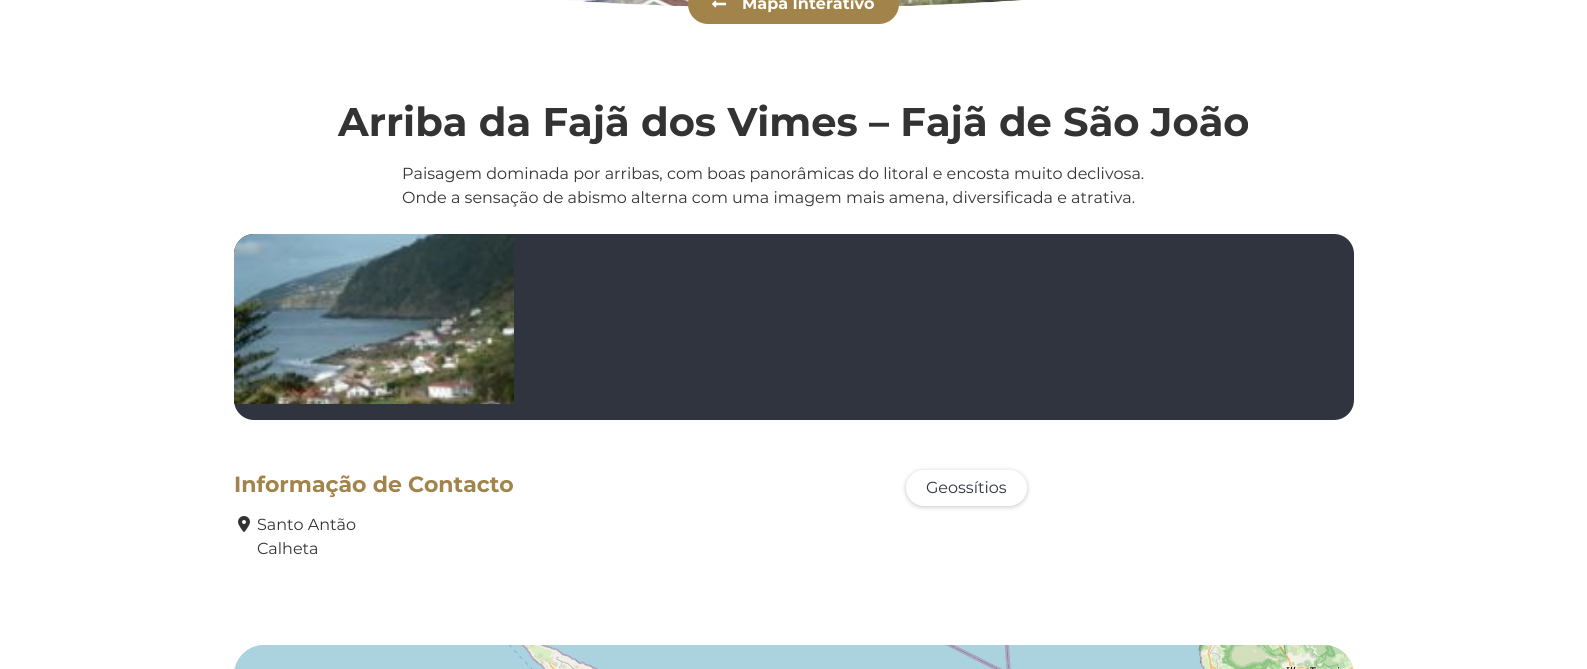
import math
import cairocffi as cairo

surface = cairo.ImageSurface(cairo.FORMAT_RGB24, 1587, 669)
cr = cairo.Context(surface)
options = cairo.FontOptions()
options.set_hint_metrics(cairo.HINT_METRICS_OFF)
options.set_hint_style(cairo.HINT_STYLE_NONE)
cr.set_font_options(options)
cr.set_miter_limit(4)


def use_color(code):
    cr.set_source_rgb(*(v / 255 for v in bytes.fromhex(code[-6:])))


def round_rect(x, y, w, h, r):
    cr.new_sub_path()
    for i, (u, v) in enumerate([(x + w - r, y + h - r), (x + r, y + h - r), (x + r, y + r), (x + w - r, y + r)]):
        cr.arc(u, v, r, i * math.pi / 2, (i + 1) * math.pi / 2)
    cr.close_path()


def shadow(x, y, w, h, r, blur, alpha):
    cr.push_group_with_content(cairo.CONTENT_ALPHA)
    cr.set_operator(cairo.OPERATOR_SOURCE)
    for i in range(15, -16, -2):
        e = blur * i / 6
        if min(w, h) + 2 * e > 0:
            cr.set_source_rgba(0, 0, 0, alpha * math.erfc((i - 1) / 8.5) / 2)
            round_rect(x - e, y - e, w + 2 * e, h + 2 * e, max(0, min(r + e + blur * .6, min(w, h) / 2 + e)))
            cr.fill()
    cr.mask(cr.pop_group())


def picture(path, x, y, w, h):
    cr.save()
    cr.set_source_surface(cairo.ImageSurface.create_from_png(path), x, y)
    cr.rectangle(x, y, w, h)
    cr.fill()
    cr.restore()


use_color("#ffffff")
cr.paint()
picture("img2.png", 560, 0, 462, 7)
picture("img1.png", 0, 0, 1587, 37)
use_color("#a2834a")
round_rect(688, -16, 211, 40, 20)
cr.fill()
picture("img3.png", 712, 0, 15, 8)
cr.select_font_face("Montserrat", cairo.FONT_SLANT_NORMAL, cairo.FONT_WEIGHT_BOLD)
cr.set_font_size(16)
use_color("#ffffff")
cr.move_to(742, 9)
cr.show_text("Mapa Interativo")
cr.set_font_size(40)
use_color("#333333")
cr.move_to(338, 136)
cr.show_text("Arriba da Fajã dos Vimes – Fajã de São João")
cr.select_font_face("Montserrat")
cr.set_font_size(16)
cr.move_to(402, 179)
cr.show_text("Paisagem dominada por arribas, com boas panorâmicas do litoral e encosta muito declivosa.")
cr.move_to(402, 203)
cr.show_text("Onde a sensação de abismo alterna com uma imagem mais amena, diversificada e atrativa.")
use_color("#30343e")
round_rect(234, 234, 1120, 186, 20)
cr.fill()
picture("img4.png", 234, 234, 280, 170)
cr.select_font_face("Montserrat", cairo.FONT_SLANT_NORMAL, cairo.FONT_WEIGHT_BOLD)
cr.set_font_size(22)
use_color("#a2834a")
cr.move_to(234, 492)
cr.show_text("Informação de Contacto")
picture("img5.png", 238, 516, 12, 16)
cr.select_font_face("Montserrat")
cr.set_font_size(16)
use_color("#333333")
cr.move_to(257, 530)
cr.show_text("Santo Antão")
cr.move_to(257, 554)
cr.show_text("Calheta")
use_color("#000000")
shadow(906, 471, 121, 36, 18, 2.5, 0.22)
use_color("#ffffff")
round_rect(906, 470, 121, 36, 18)
cr.fill()
use_color("#30343e")
cr.move_to(926, 493)
cr.show_text("Geossítios")
use_color("#dddddd")
round_rect(234, 645, 1120, 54, 30)
cr.fill()
picture("img6.png", 234, 645, 167, 24)
picture("img7.png", 401, 645, 256, 24)
use_color("#aad3df")
cr.rectangle(657, 645, 256, 24)
cr.fill()
picture("img8.png", 913, 645, 256, 24)
picture("img9.png", 1169, 645, 185, 24)
surface.write_to_png("result.png")
